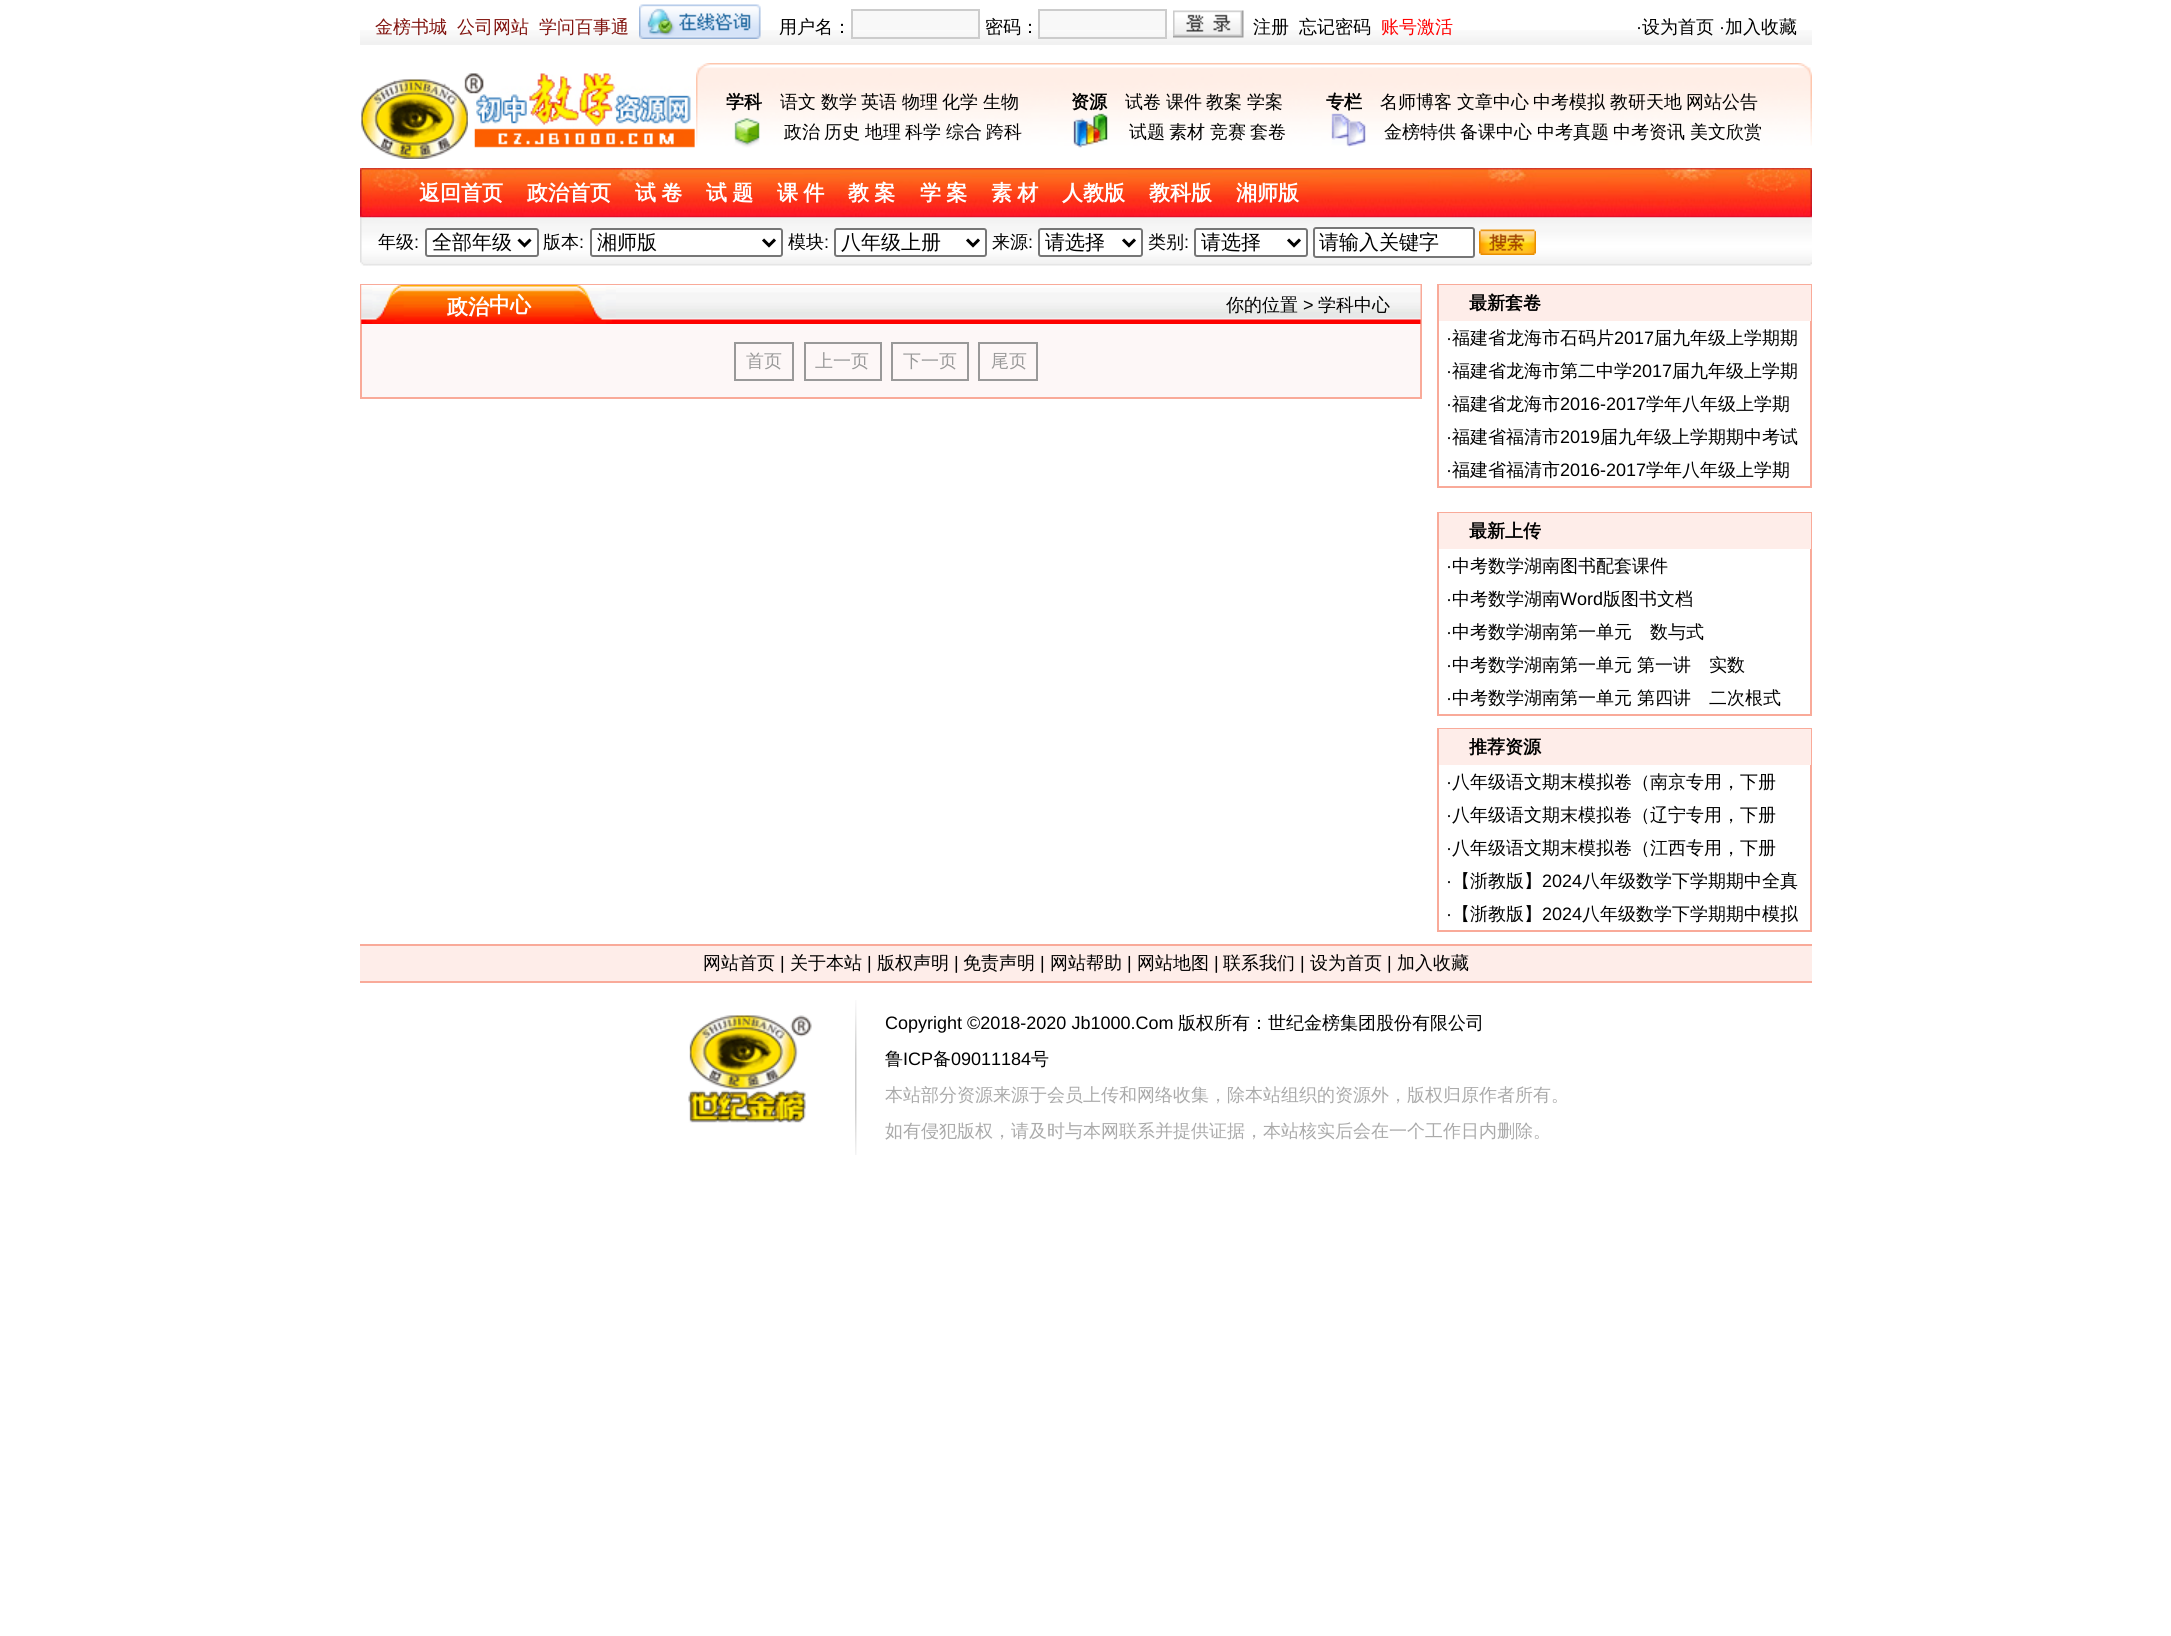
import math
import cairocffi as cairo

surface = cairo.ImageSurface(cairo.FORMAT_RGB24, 2171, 1636)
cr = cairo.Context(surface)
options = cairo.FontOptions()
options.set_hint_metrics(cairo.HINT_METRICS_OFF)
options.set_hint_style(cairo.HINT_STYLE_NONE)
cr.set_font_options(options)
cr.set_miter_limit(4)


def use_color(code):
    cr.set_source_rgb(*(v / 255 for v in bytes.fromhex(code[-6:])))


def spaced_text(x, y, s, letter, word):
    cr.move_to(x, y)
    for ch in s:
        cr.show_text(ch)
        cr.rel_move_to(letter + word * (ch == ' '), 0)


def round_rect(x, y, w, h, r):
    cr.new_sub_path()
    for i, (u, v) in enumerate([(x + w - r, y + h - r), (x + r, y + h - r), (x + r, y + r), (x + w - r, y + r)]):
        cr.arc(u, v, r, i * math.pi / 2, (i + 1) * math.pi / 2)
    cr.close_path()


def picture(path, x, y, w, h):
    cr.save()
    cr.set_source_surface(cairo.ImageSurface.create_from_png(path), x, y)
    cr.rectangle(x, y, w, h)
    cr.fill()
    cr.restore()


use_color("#ffffff")
cr.paint()
picture("img1.png", 360, 30, 1452, 15)
cr.select_font_face("WenQuanYi Zen Hei Medium")
cr.set_font_size(18)
use_color("#81140f")
cr.move_to(375, 33)
cr.show_text("金榜书城")
cr.move_to(457, 33)
cr.show_text("公司网站")
cr.move_to(539, 33)
cr.show_text("学问百事通")
picture("img2.png", 639, 4, 122, 35)
use_color("#000000")
cr.move_to(779, 33)
cr.show_text("用户名：")
use_color("#f8f8f8")
cr.rectangle(853, 11, 125, 19)
cr.fill()
cr.rectangle(852, 10, 127, 28)
use_color("#cccccc")
cr.stroke()
use_color("#000000")
cr.move_to(985, 33)
cr.show_text("密码：")
use_color("#f8f8f8")
cr.rectangle(1040, 11, 125, 19)
cr.fill()
cr.rectangle(1039, 10, 127, 28)
use_color("#cccccc")
cr.stroke()
picture("img3.png", 1173, 10, 71, 28)
use_color("#000000")
cr.move_to(1253, 33)
cr.show_text("注册")
cr.move_to(1299, 33)
cr.show_text("忘记密码")
use_color("#ff0000")
cr.move_to(1381, 33)
cr.show_text("账号激活")
cr.select_font_face("Liberation Sans")
use_color("#000000")
cr.move_to(1636, 33)
cr.show_text("·")
cr.select_font_face("WenQuanYi Zen Hei Medium")
cr.move_to(1642, 33)
cr.show_text("设为首页")
cr.select_font_face("Liberation Sans")
cr.move_to(1719, 33)
cr.show_text("·")
cr.select_font_face("WenQuanYi Zen Hei Medium")
cr.move_to(1725, 33)
cr.show_text("加入收藏")
picture("img4.png", 361, 73, 334, 86)
picture("img5.png", 696, 63, 1116, 85)
cr.select_font_face("WenQuanYi Zen Hei", cairo.FONT_SLANT_NORMAL, cairo.FONT_WEIGHT_BOLD)
cr.move_to(726, 108)
cr.show_text("学科")
cr.select_font_face("WenQuanYi Zen Hei Medium")
cr.move_to(780, 108)
cr.show_text("语文")
cr.move_to(821, 108)
cr.show_text("数学")
cr.move_to(861, 108)
cr.show_text("英语")
cr.move_to(902, 108)
cr.show_text("物理")
cr.move_to(942, 108)
cr.show_text("化学")
cr.move_to(983, 108)
cr.show_text("生物")
cr.move_to(784, 138)
cr.show_text("政治")
cr.move_to(824, 138)
cr.show_text("历史")
cr.move_to(865, 138)
cr.show_text("地理")
cr.move_to(905, 138)
cr.show_text("科学")
cr.move_to(946, 138)
cr.show_text("综合")
cr.move_to(986, 138)
cr.show_text("跨科")
cr.select_font_face("WenQuanYi Zen Hei", cairo.FONT_SLANT_NORMAL, cairo.FONT_WEIGHT_BOLD)
cr.move_to(1071, 108)
cr.show_text("资源")
cr.select_font_face("WenQuanYi Zen Hei Medium")
cr.move_to(1125, 108)
cr.show_text("试卷")
cr.move_to(1166, 108)
cr.show_text("课件")
cr.move_to(1206, 108)
cr.show_text("教案")
cr.move_to(1247, 108)
cr.show_text("学案")
cr.move_to(1129, 138)
cr.show_text("试题")
cr.move_to(1169, 138)
cr.show_text("素材")
cr.move_to(1210, 138)
cr.show_text("竞赛")
cr.move_to(1250, 138)
cr.show_text("套卷")
cr.select_font_face("WenQuanYi Zen Hei", cairo.FONT_SLANT_NORMAL, cairo.FONT_WEIGHT_BOLD)
cr.move_to(1326, 108)
cr.show_text("专栏")
cr.select_font_face("WenQuanYi Zen Hei Medium")
cr.move_to(1380, 108)
cr.show_text("名师博客")
cr.move_to(1457, 108)
cr.show_text("文章中心")
cr.move_to(1533, 108)
cr.show_text("中考模拟")
cr.move_to(1610, 108)
cr.show_text("教研天地")
cr.move_to(1686, 108)
cr.show_text("网站公告")
cr.move_to(1384, 138)
cr.show_text("金榜特供")
cr.move_to(1460, 138)
cr.show_text("备课中心")
cr.move_to(1537, 138)
cr.show_text("中考真题")
cr.move_to(1613, 138)
cr.show_text("中考资讯")
cr.move_to(1690, 138)
cr.show_text("美文欣赏")
picture("img6.png", 360, 168, 1452, 50)
cr.select_font_face("WenQuanYi Zen Hei", cairo.FONT_SLANT_NORMAL, cairo.FONT_WEIGHT_BOLD)
cr.set_font_size(21)
use_color("#ffffff")
cr.move_to(419, 200)
cr.show_text("返回首页")
cr.move_to(527, 200)
cr.show_text("政治首页")
spaced_text(635, 200, "试 卷", 0, -1)
spaced_text(706, 200, "试 题", 0, -1)
spaced_text(777, 200, "课 件", 0, -1)
spaced_text(848, 200, "教 案", 0, -1)
spaced_text(920, 200, "学 案", 0, -1)
spaced_text(991, 200, "素 材", 0, -1)
cr.move_to(1062, 200)
cr.show_text("人教版")
cr.move_to(1149, 200)
cr.show_text("教科版")
cr.move_to(1236, 200)
cr.show_text("湘师版")
picture("img7.png", 360, 217, 1452, 49)
cr.select_font_face("WenQuanYi Zen Hei Medium")
cr.set_font_size(18)
use_color("#000000")
cr.move_to(378, 248)
cr.show_text("年级")
cr.select_font_face("Liberation Sans")
cr.move_to(414, 248)
cr.show_text(":")
use_color("#ffffff")
round_rect(426, 229, 112, 27, 2)
cr.fill_preserve()
use_color("#767676")
cr.stroke()
cr.new_path()
cr.move_to(518.5, 239.5)
cr.line_to(524.5, 245.5)
cr.line_to(530.5, 239.5)
use_color("#000000")
cr.set_line_width(3)
cr.stroke()
cr.select_font_face("WenQuanYi Zen Hei Medium")
cr.set_font_size(20)
cr.move_to(432, 249)
cr.show_text("全部年级")
cr.set_font_size(18)
cr.move_to(543, 248)
cr.show_text("版本")
cr.select_font_face("Liberation Sans")
cr.move_to(579, 248)
cr.show_text(":")
use_color("#ffffff")
round_rect(591, 229, 191, 27, 2)
cr.fill_preserve()
use_color("#767676")
cr.set_line_width(2)
cr.stroke()
cr.new_path()
cr.move_to(763, 239.5)
cr.line_to(769, 245.5)
cr.line_to(775, 239.5)
use_color("#000000")
cr.set_line_width(3)
cr.stroke()
cr.select_font_face("WenQuanYi Zen Hei Medium")
cr.set_font_size(20)
cr.move_to(597, 249)
cr.show_text("湘师版")
cr.set_font_size(18)
cr.move_to(788, 248)
cr.show_text("模块")
cr.select_font_face("Liberation Sans")
cr.move_to(824, 248)
cr.show_text(":")
use_color("#ffffff")
round_rect(835, 229, 151, 27, 2)
cr.fill_preserve()
use_color("#767676")
cr.set_line_width(2)
cr.stroke()
cr.new_path()
cr.move_to(967, 239.5)
cr.line_to(973, 245.5)
cr.line_to(979, 239.5)
use_color("#000000")
cr.set_line_width(3)
cr.stroke()
cr.select_font_face("WenQuanYi Zen Hei Medium")
cr.set_font_size(20)
cr.move_to(841, 249)
cr.show_text("八年级上册")
cr.set_font_size(18)
cr.move_to(992, 248)
cr.show_text("来源")
cr.select_font_face("Liberation Sans")
cr.move_to(1028, 248)
cr.show_text(":")
use_color("#ffffff")
round_rect(1039, 229, 103, 27, 2)
cr.fill_preserve()
use_color("#767676")
cr.set_line_width(2)
cr.stroke()
cr.new_path()
cr.move_to(1123, 239.5)
cr.line_to(1129, 245.5)
cr.line_to(1135, 239.5)
use_color("#000000")
cr.set_line_width(3)
cr.stroke()
cr.select_font_face("WenQuanYi Zen Hei Medium")
cr.set_font_size(20)
cr.move_to(1045, 249)
cr.show_text("请选择")
cr.set_font_size(18)
cr.move_to(1148, 248)
cr.show_text("类别")
cr.select_font_face("Liberation Sans")
cr.move_to(1184, 248)
cr.show_text(":")
use_color("#ffffff")
round_rect(1195, 229, 112, 27, 2)
cr.fill_preserve()
use_color("#767676")
cr.set_line_width(2)
cr.stroke()
cr.new_path()
cr.move_to(1288, 239.5)
cr.line_to(1294, 245.5)
cr.line_to(1300, 239.5)
use_color("#000000")
cr.set_line_width(3)
cr.stroke()
cr.select_font_face("WenQuanYi Zen Hei Medium")
cr.set_font_size(20)
cr.move_to(1201, 249)
cr.show_text("请选择")
use_color("#ffffff")
round_rect(1314, 228, 160, 29, 2)
cr.fill_preserve()
use_color("#767676")
cr.set_line_width(2)
cr.stroke()
use_color("#000000")
cr.move_to(1319, 249)
cr.show_text("请输入关键字")
picture("img8.png", 1479, 229, 57, 26)
use_color("#fdf7f7")
cr.rectangle(362, 324, 1058, 73)
cr.fill()
cr.rectangle(361, 285, 1060, 113)
use_color("#f9aa99")
cr.stroke()
picture("img9.png", 361, 285, 1060, 39)
picture("img10.png", 361, 285, 255, 39)
cr.select_font_face("WenQuanYi Zen Hei", cairo.FONT_SLANT_NORMAL, cairo.FONT_WEIGHT_BOLD)
cr.set_font_size(21)
use_color("#ffffff")
cr.move_to(447, 314)
cr.show_text("政治")
cr.move_to(489, 312)
cr.show_text("中心")
cr.select_font_face("WenQuanYi Zen Hei Medium")
cr.set_font_size(18)
use_color("#000000")
cr.move_to(1226, 311)
cr.show_text("你的位置")
cr.select_font_face("Liberation Sans")
cr.move_to(1303, 311)
cr.show_text(">")
cr.select_font_face("WenQuanYi Zen Hei Medium")
cr.move_to(1318, 311)
cr.show_text("学科中心")
cr.rectangle(735, 343, 58, 37)
use_color("#999999")
cr.stroke()
cr.move_to(746, 367)
cr.show_text("首页")
cr.rectangle(805, 343, 76, 37)
cr.stroke()
cr.move_to(815, 367)
cr.show_text("上一页")
cr.rectangle(892, 343, 76, 37)
cr.stroke()
cr.move_to(903, 367)
cr.show_text("下一页")
cr.rectangle(979, 343, 58, 37)
cr.stroke()
cr.move_to(991, 367)
cr.show_text("尾页")
cr.rectangle(1438, 285, 373, 202)
use_color("#f9aa99")
cr.stroke()
use_color("#feede9")
cr.rectangle(1439, 285, 372, 36)
cr.fill()
cr.select_font_face("WenQuanYi Zen Hei", cairo.FONT_SLANT_NORMAL, cairo.FONT_WEIGHT_BOLD)
use_color("#000000")
cr.move_to(1469, 309)
cr.show_text("最新套卷")
cr.select_font_face("Liberation Sans")
cr.move_to(1446, 344)
cr.show_text("·")
cr.select_font_face("WenQuanYi Zen Hei Medium")
cr.move_to(1452, 344)
cr.show_text("福建省龙海市石码片")
cr.select_font_face("Liberation Sans")
cr.move_to(1614, 344)
cr.show_text("2017")
cr.select_font_face("WenQuanYi Zen Hei Medium")
cr.move_to(1654, 344)
cr.show_text("届九年级上学期期")
cr.select_font_face("Liberation Sans")
cr.move_to(1446, 377)
cr.show_text("·")
cr.select_font_face("WenQuanYi Zen Hei Medium")
cr.move_to(1452, 377)
cr.show_text("福建省龙海市第二中学")
cr.select_font_face("Liberation Sans")
cr.move_to(1632, 377)
cr.show_text("2017")
cr.select_font_face("WenQuanYi Zen Hei Medium")
cr.move_to(1672, 377)
cr.show_text("届九年级上学期")
cr.select_font_face("Liberation Sans")
cr.move_to(1446, 410)
cr.show_text("·")
cr.select_font_face("WenQuanYi Zen Hei Medium")
cr.move_to(1452, 410)
cr.show_text("福建省龙海市")
cr.select_font_face("Liberation Sans")
cr.move_to(1560, 410)
cr.show_text("2016-2017")
cr.select_font_face("WenQuanYi Zen Hei Medium")
cr.move_to(1646, 410)
cr.show_text("学年八年级上学期")
cr.select_font_face("Liberation Sans")
cr.move_to(1446, 443)
cr.show_text("·")
cr.select_font_face("WenQuanYi Zen Hei Medium")
cr.move_to(1452, 443)
cr.show_text("福建省福清市")
cr.select_font_face("Liberation Sans")
cr.move_to(1560, 443)
cr.show_text("2019")
cr.select_font_face("WenQuanYi Zen Hei Medium")
cr.move_to(1600, 443)
cr.show_text("届九年级上学期期中考试")
cr.select_font_face("Liberation Sans")
cr.move_to(1446, 476)
cr.show_text("·")
cr.select_font_face("WenQuanYi Zen Hei Medium")
cr.move_to(1452, 476)
cr.show_text("福建省福清市")
cr.select_font_face("Liberation Sans")
cr.move_to(1560, 476)
cr.show_text("2016-2017")
cr.select_font_face("WenQuanYi Zen Hei Medium")
cr.move_to(1646, 476)
cr.show_text("学年八年级上学期")
cr.rectangle(1438, 513, 373, 202)
use_color("#f9aa99")
cr.stroke()
use_color("#feede9")
cr.rectangle(1439, 513, 372, 36)
cr.fill()
cr.select_font_face("WenQuanYi Zen Hei", cairo.FONT_SLANT_NORMAL, cairo.FONT_WEIGHT_BOLD)
use_color("#000000")
cr.move_to(1469, 537)
cr.show_text("最新上传")
cr.select_font_face("Liberation Sans")
cr.move_to(1446, 572)
cr.show_text("·")
cr.select_font_face("WenQuanYi Zen Hei Medium")
cr.move_to(1452, 572)
cr.show_text("中考数学湖南图书配套课件")
cr.select_font_face("Liberation Sans")
cr.move_to(1446, 605)
cr.show_text("·")
cr.select_font_face("WenQuanYi Zen Hei Medium")
cr.move_to(1452, 605)
cr.show_text("中考数学湖南")
cr.select_font_face("Liberation Sans")
cr.move_to(1560, 605)
cr.show_text("Word")
cr.select_font_face("WenQuanYi Zen Hei Medium")
cr.move_to(1603, 605)
cr.show_text("版图书文档")
cr.select_font_face("Liberation Sans")
cr.move_to(1446, 638)
cr.show_text("·")
cr.select_font_face("WenQuanYi Zen Hei Medium")
cr.move_to(1452, 638)
cr.show_text("中考数学湖南第一单元　数与式")
cr.select_font_face("Liberation Sans")
cr.move_to(1446, 671)
cr.show_text("·")
cr.select_font_face("WenQuanYi Zen Hei Medium")
cr.move_to(1452, 671)
cr.show_text("中考数学湖南第一单元")
cr.move_to(1637, 671)
cr.show_text("第一讲　实数")
cr.select_font_face("Liberation Sans")
cr.move_to(1446, 704)
cr.show_text("·")
cr.select_font_face("WenQuanYi Zen Hei Medium")
cr.move_to(1452, 704)
cr.show_text("中考数学湖南第一单元")
cr.move_to(1637, 704)
cr.show_text("第四讲　二次根式")
cr.rectangle(1438, 729, 373, 202)
use_color("#f9aa99")
cr.stroke()
use_color("#feede9")
cr.rectangle(1439, 729, 372, 36)
cr.fill()
cr.select_font_face("WenQuanYi Zen Hei", cairo.FONT_SLANT_NORMAL, cairo.FONT_WEIGHT_BOLD)
use_color("#000000")
cr.move_to(1469, 753)
cr.show_text("推荐资源")
cr.select_font_face("Liberation Sans")
cr.move_to(1446, 788)
cr.show_text("·")
cr.select_font_face("WenQuanYi Zen Hei Medium")
cr.move_to(1452, 788)
cr.show_text("八年级语文期末模拟卷（南京专用，下册")
cr.select_font_face("Liberation Sans")
cr.move_to(1446, 821)
cr.show_text("·")
cr.select_font_face("WenQuanYi Zen Hei Medium")
cr.move_to(1452, 821)
cr.show_text("八年级语文期末模拟卷（辽宁专用，下册")
cr.select_font_face("Liberation Sans")
cr.move_to(1446, 854)
cr.show_text("·")
cr.select_font_face("WenQuanYi Zen Hei Medium")
cr.move_to(1452, 854)
cr.show_text("八年级语文期末模拟卷（江西专用，下册")
cr.select_font_face("Liberation Sans")
cr.move_to(1446, 887)
cr.show_text("·")
cr.select_font_face("WenQuanYi Zen Hei Medium")
cr.move_to(1452, 887)
cr.show_text("【浙教版】")
cr.select_font_face("Liberation Sans")
cr.move_to(1542, 887)
cr.show_text("2024")
cr.select_font_face("WenQuanYi Zen Hei Medium")
cr.move_to(1582, 887)
cr.show_text("八年级数学下学期期中全真")
cr.select_font_face("Liberation Sans")
cr.move_to(1446, 920)
cr.show_text("·")
cr.select_font_face("WenQuanYi Zen Hei Medium")
cr.move_to(1452, 920)
cr.show_text("【浙教版】")
cr.select_font_face("Liberation Sans")
cr.move_to(1542, 920)
cr.show_text("2024")
cr.select_font_face("WenQuanYi Zen Hei Medium")
cr.move_to(1582, 920)
cr.show_text("八年级数学下学期期中模拟")
use_color("#feede9")
cr.rectangle(360, 946, 1452, 35)
cr.fill()
use_color("#f9aa99")
cr.rectangle(360, 944, 1452, 2)
cr.fill()
cr.rectangle(360, 981, 1452, 2)
cr.fill()
use_color("#000000")
cr.move_to(703, 969)
cr.show_text("网站首页")
cr.select_font_face("Liberation Sans")
cr.move_to(780, 969)
cr.show_text("|")
cr.select_font_face("WenQuanYi Zen Hei Medium")
cr.move_to(790, 969)
cr.show_text("关于本站")
cr.select_font_face("Liberation Sans")
cr.move_to(867, 969)
cr.show_text("|")
cr.select_font_face("WenQuanYi Zen Hei Medium")
cr.move_to(877, 969)
cr.show_text("版权声明")
cr.select_font_face("Liberation Sans")
cr.move_to(954, 969)
cr.show_text("|")
cr.select_font_face("WenQuanYi Zen Hei Medium")
cr.move_to(963, 969)
cr.show_text("免责声明")
cr.select_font_face("Liberation Sans")
cr.move_to(1040, 969)
cr.show_text("|")
cr.select_font_face("WenQuanYi Zen Hei Medium")
cr.move_to(1050, 969)
cr.show_text("网站帮助")
cr.select_font_face("Liberation Sans")
cr.move_to(1127, 969)
cr.show_text("|")
cr.select_font_face("WenQuanYi Zen Hei Medium")
cr.move_to(1137, 969)
cr.show_text("网站地图")
cr.select_font_face("Liberation Sans")
cr.move_to(1214, 969)
cr.show_text("|")
cr.select_font_face("WenQuanYi Zen Hei Medium")
cr.move_to(1223, 969)
cr.show_text("联系我们")
cr.select_font_face("Liberation Sans")
cr.move_to(1300, 969)
cr.show_text("|")
cr.select_font_face("WenQuanYi Zen Hei Medium")
cr.move_to(1310, 969)
cr.show_text("设为首页")
cr.select_font_face("Liberation Sans")
cr.move_to(1387, 969)
cr.show_text("|")
cr.select_font_face("WenQuanYi Zen Hei Medium")
cr.move_to(1397, 969)
cr.show_text("加入收藏")
picture("img11.png", 855, 1000, 2, 155)
picture("img12.png", 688, 1015, 124, 108)
cr.select_font_face("Liberation Sans")
cr.move_to(885, 1029)
cr.show_text("Copyright ©2018-2020 Jb1000.Com")
cr.select_font_face("WenQuanYi Zen Hei Medium")
cr.move_to(1178, 1029)
cr.show_text("版权所有：世纪金榜集团股份有限公司")
cr.move_to(885, 1065)
cr.show_text("鲁")
cr.select_font_face("Liberation Sans")
cr.move_to(903, 1065)
cr.show_text("ICP")
cr.select_font_face("WenQuanYi Zen Hei Medium")
cr.move_to(933, 1065)
cr.show_text("备")
cr.select_font_face("Liberation Sans")
cr.move_to(951, 1065)
cr.show_text("09011184")
cr.select_font_face("WenQuanYi Zen Hei Medium")
cr.move_to(1031, 1065)
cr.show_text("号")
use_color("#aaaaaa")
cr.move_to(885, 1101)
cr.show_text("本站部分资源来源于会员上传和网络收集，除本站组织的资源外，版权归原作者所有。")
cr.move_to(885, 1137)
cr.show_text("如有侵犯版权，请及时与本网联系并提供证据，本站核实后会在一个工作日内删除。")
surface.write_to_png("result.png")
